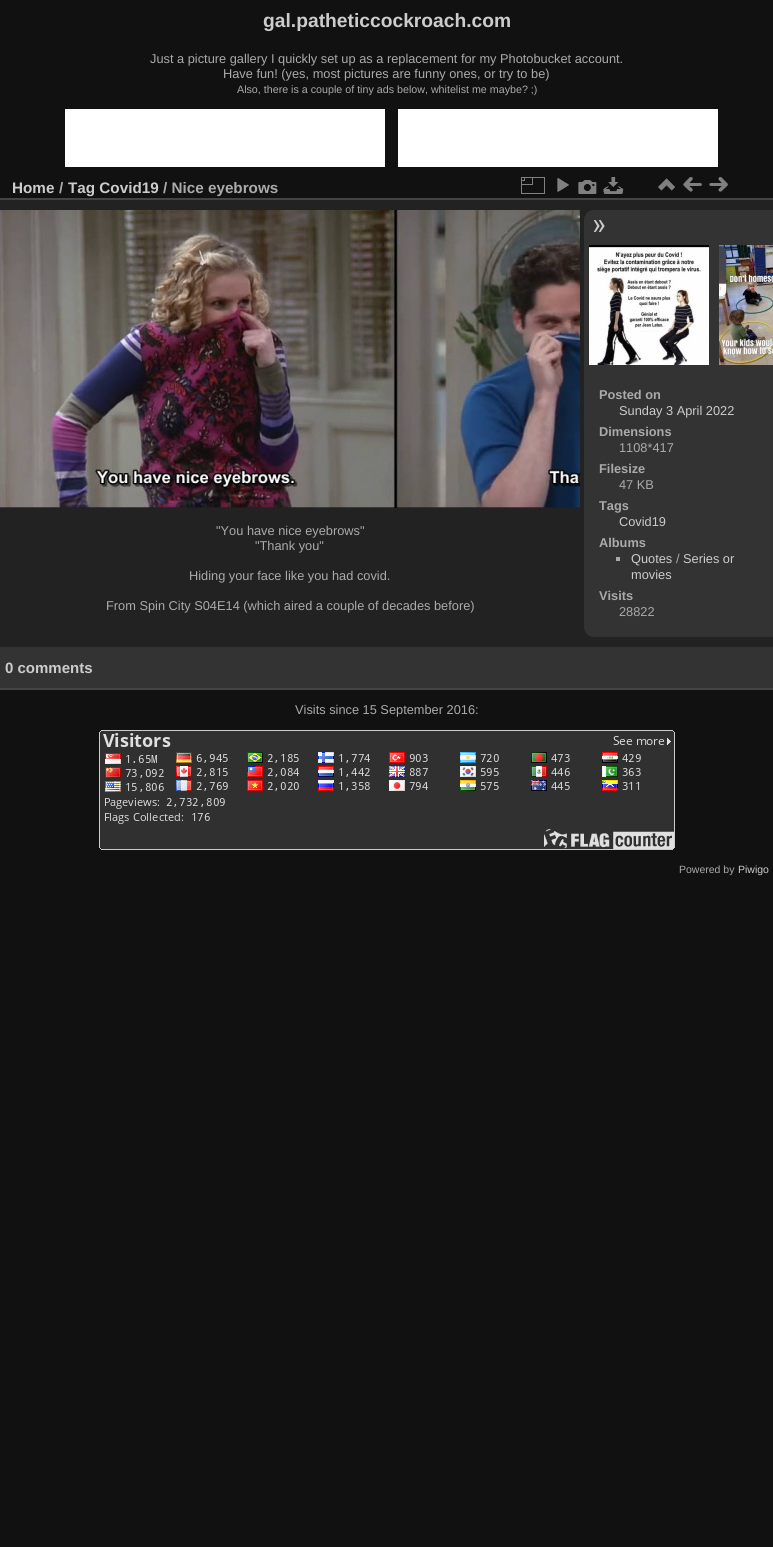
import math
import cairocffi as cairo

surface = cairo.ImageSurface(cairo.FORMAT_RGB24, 773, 1547)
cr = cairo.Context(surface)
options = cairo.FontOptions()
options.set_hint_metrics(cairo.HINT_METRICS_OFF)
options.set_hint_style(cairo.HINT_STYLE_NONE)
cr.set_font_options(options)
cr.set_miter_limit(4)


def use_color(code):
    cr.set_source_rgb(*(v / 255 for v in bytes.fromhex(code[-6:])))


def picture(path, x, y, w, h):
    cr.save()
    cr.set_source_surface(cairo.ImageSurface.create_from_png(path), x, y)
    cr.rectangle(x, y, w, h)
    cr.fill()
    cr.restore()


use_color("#111111")
cr.paint()
cr.select_font_face("Liberation Sans", cairo.FONT_SLANT_NORMAL, cairo.FONT_WEIGHT_BOLD)
cr.set_font_size(19.25)
use_color("#cccccc")
cr.move_to(263, 27)
cr.show_text("gal.patheticcockroach.com")
cr.select_font_face("Liberation Sans")
cr.set_font_size(12.8)
use_color("#aaaaaa")
cr.move_to(150, 63)
cr.show_text("Just a picture gallery I quickly set up as a replacement for my Photobucket account.")
cr.move_to(223, 78)
cr.show_text("Have fun! (yes, most pictures are funny ones, or try to be)")
cr.set_font_size(10.7)
cr.move_to(237, 93)
cr.show_text("Also, there is a couple of tiny ads below, whitelist me maybe? ;)")
use_color("#ffffff")
cr.rectangle(65, 109, 320, 58)
cr.fill()
cr.rectangle(398, 109, 320, 58)
cr.fill()
use_color("#222222")
cr.rectangle(0, 200, 773, 447)
cr.fill()
use_color("#444444")
cr.rectangle(0, 688, 773, 2)
cr.fill()
cr.rectangle(0, 198, 773, 2)
cr.fill()
cr.select_font_face("Liberation Sans", cairo.FONT_SLANT_NORMAL, cairo.FONT_WEIGHT_BOLD)
cr.set_font_size(15.25)
use_color("#cccccc")
cr.move_to(12, 193)
cr.show_text("Home")
use_color("#aaaaaa")
cr.move_to(59, 193)
cr.show_text("/")
use_color("#cccccc")
cr.move_to(68, 193)
cr.show_text("Tag Covid19")
use_color("#aaaaaa")
cr.move_to(163, 193)
cr.show_text("/ Nice eyebrows")
picture("img1.png", 521, 177, 24, 17)
picture("img2.png", 557, 178, 12, 14)
picture("img3.png", 578, 180, 19, 14)
picture("img4.png", 603, 177, 21, 17)
picture("img5.png", 658, 178, 17, 13)
picture("img6.png", 683, 177, 19, 15)
picture("img7.png", 709, 177, 19, 15)
use_color("#333333")
cr.new_path()
cr.move_to(594, 210)
cr.line_to(773, 210)
cr.line_to(773, 637)
cr.line_to(594, 637)
cr.curve_to(588.5, 637, 584, 632.5, 584, 627)
cr.line_to(584, 220)
cr.curve_to(584, 214.5, 588.5, 210, 594, 210)
cr.close_path()
cr.fill()
picture("img8.png", 593, 220, 12, 12)
picture("img9.png", 0, 210, 580, 298)
cr.select_font_face("Liberation Sans")
cr.set_font_size(12.8)
use_color("#aaaaaa")
cr.move_to(216, 535)
cr.show_text("\"You have nice eyebrows\"")
cr.move_to(255, 550)
cr.show_text("\"Thank you\"")
cr.move_to(189, 580)
cr.show_text("Hiding your face like you had covid.")
cr.move_to(106, 610)
cr.show_text("From Spin City S04E14 (which aired a couple of decades before)")
picture("img10.png", 589, 245, 120, 120)
picture("img11.png", 719, 245, 54, 120)
cr.select_font_face("Liberation Sans", cairo.FONT_SLANT_NORMAL, cairo.FONT_WEIGHT_BOLD)
cr.move_to(599, 399)
cr.show_text("Posted on")
cr.select_font_face("Liberation Sans")
use_color("#cccccc")
cr.move_to(619, 415)
cr.show_text("Sunday 3 April 2022")
cr.select_font_face("Liberation Sans", cairo.FONT_SLANT_NORMAL, cairo.FONT_WEIGHT_BOLD)
use_color("#aaaaaa")
cr.move_to(599, 436)
cr.show_text("Dimensions")
cr.select_font_face("Liberation Sans")
cr.move_to(619, 452)
cr.show_text("1108*417")
cr.select_font_face("Liberation Sans", cairo.FONT_SLANT_NORMAL, cairo.FONT_WEIGHT_BOLD)
cr.move_to(599, 473)
cr.show_text("Filesize")
cr.select_font_face("Liberation Sans")
cr.move_to(619, 489)
cr.show_text("47 KB")
cr.select_font_face("Liberation Sans", cairo.FONT_SLANT_NORMAL, cairo.FONT_WEIGHT_BOLD)
cr.move_to(599, 510)
cr.show_text("Tags")
cr.select_font_face("Liberation Sans")
use_color("#cccccc")
cr.move_to(619, 526)
cr.show_text("Covid19")
cr.select_font_face("Liberation Sans", cairo.FONT_SLANT_NORMAL, cairo.FONT_WEIGHT_BOLD)
use_color("#aaaaaa")
cr.move_to(599, 547)
cr.show_text("Albums")
cr.rectangle(616, 557, 4, 4)
cr.fill()
cr.select_font_face("Liberation Sans")
use_color("#cccccc")
cr.move_to(631, 563)
cr.show_text("Quotes")
use_color("#aaaaaa")
cr.move_to(676, 563)
cr.show_text("/")
use_color("#cccccc")
cr.move_to(683, 563)
cr.show_text("Series or")
cr.move_to(631, 579)
cr.show_text("movies")
cr.select_font_face("Liberation Sans", cairo.FONT_SLANT_NORMAL, cairo.FONT_WEIGHT_BOLD)
use_color("#aaaaaa")
cr.move_to(599, 600)
cr.show_text("Visits")
cr.select_font_face("Liberation Sans")
cr.move_to(619, 616)
cr.show_text("28822")
use_color("#333333")
cr.rectangle(0, 647, 773, 41)
cr.fill()
cr.select_font_face("Liberation Sans", cairo.FONT_SLANT_NORMAL, cairo.FONT_WEIGHT_BOLD)
cr.set_font_size(15)
use_color("#cccccc")
cr.move_to(5, 673)
cr.show_text("0 comments")
cr.select_font_face("Liberation Sans")
cr.set_font_size(12.8)
use_color("#aaaaaa")
cr.move_to(295, 714)
cr.show_text("Visits since 15 September 2016:")
picture("img12.png", 99, 730, 576, 120)
cr.set_font_size(10.5)
cr.move_to(679, 873)
cr.show_text("Powered by")
use_color("#cccccc")
cr.move_to(738, 873)
cr.show_text("Piwigo")
surface.write_to_png("result.png")
